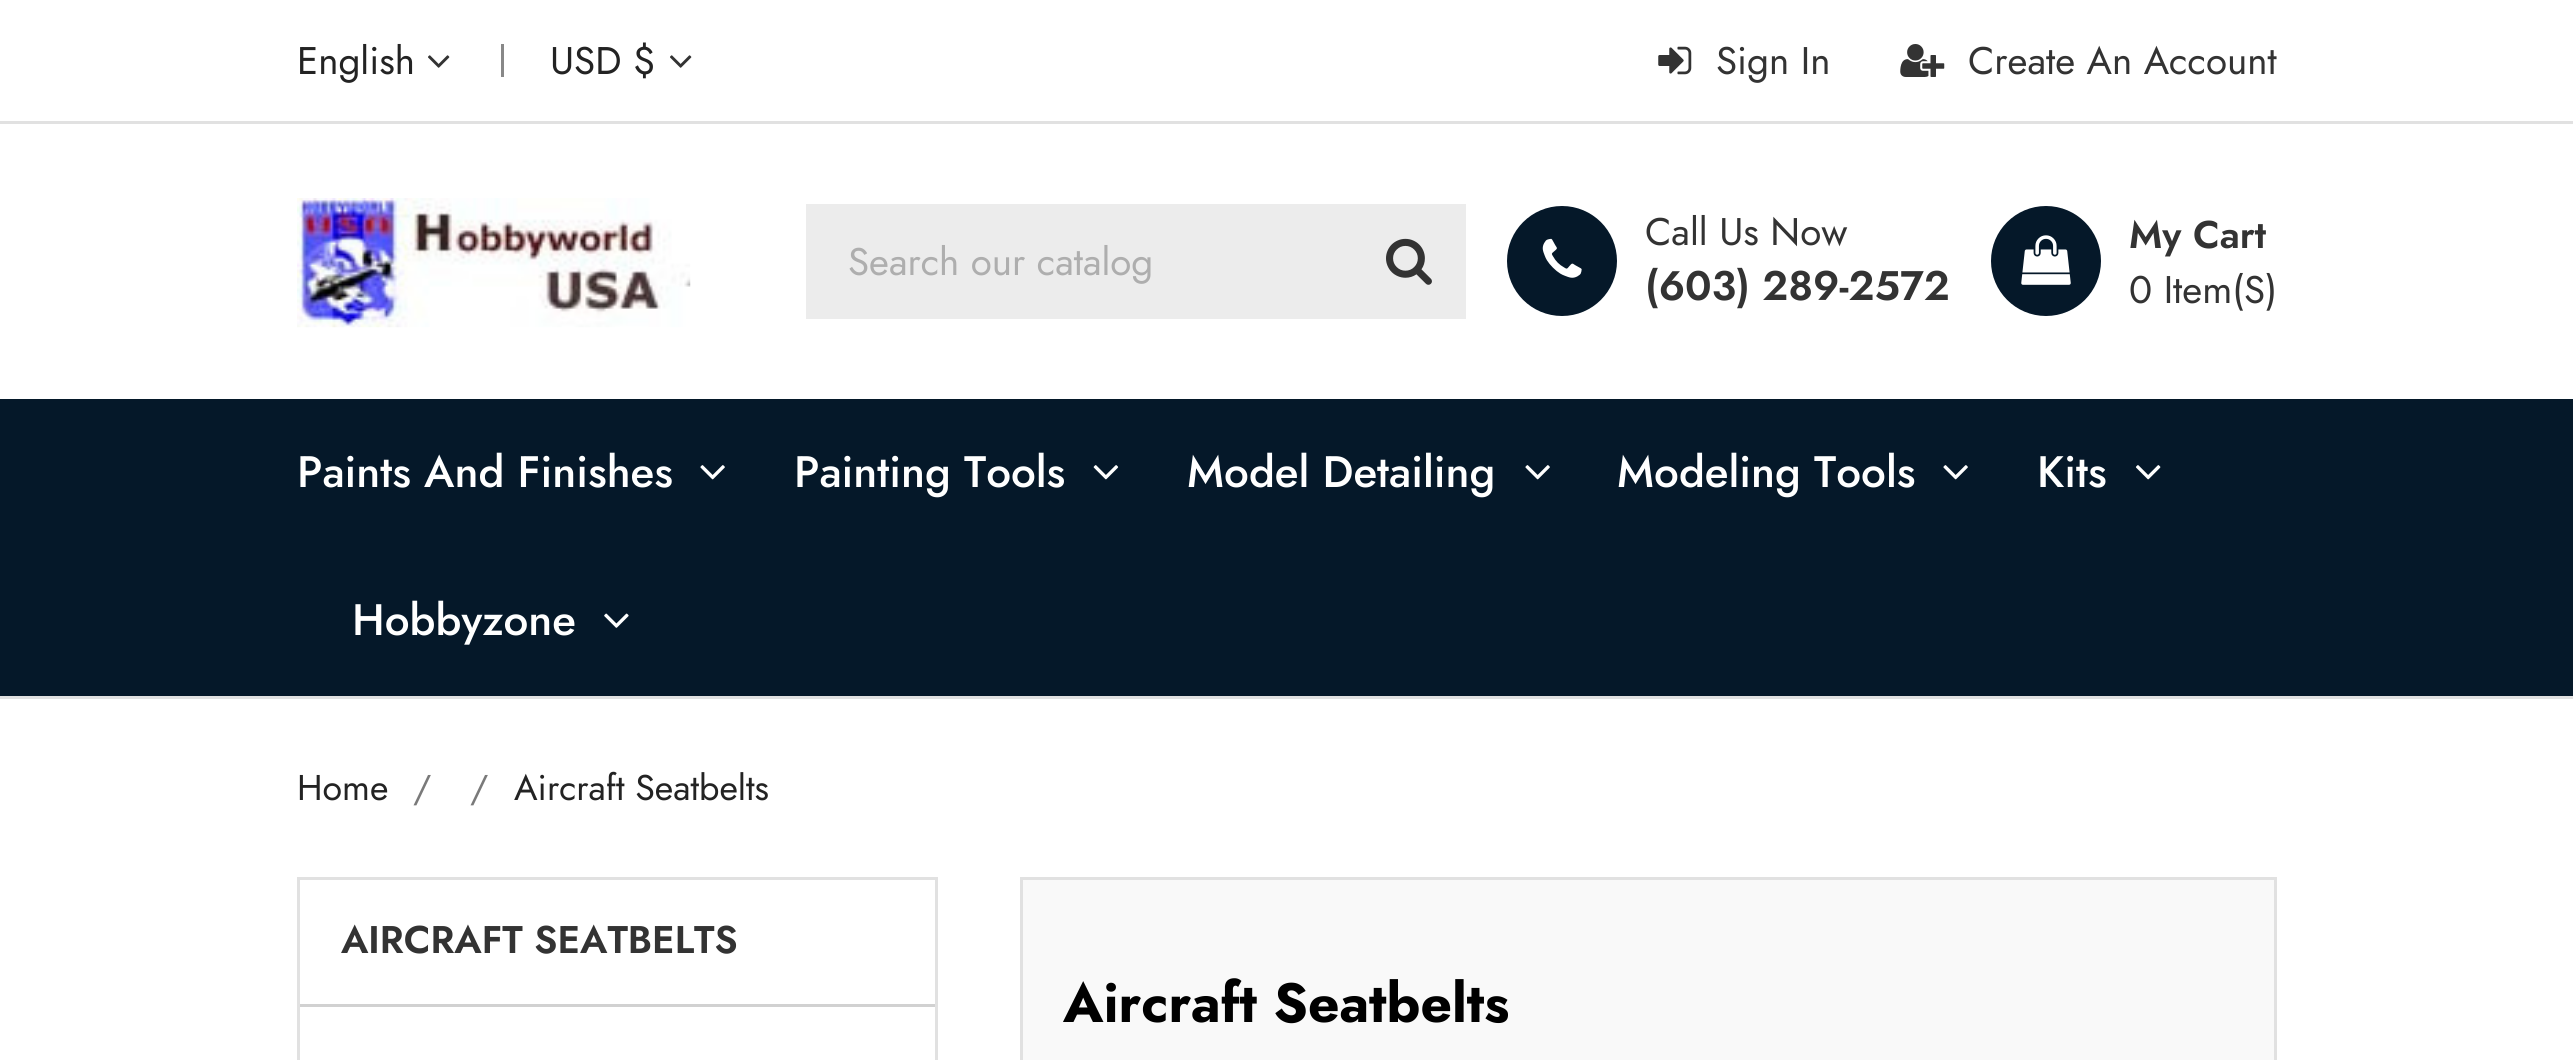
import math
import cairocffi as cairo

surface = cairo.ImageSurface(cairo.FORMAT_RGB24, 2573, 1060)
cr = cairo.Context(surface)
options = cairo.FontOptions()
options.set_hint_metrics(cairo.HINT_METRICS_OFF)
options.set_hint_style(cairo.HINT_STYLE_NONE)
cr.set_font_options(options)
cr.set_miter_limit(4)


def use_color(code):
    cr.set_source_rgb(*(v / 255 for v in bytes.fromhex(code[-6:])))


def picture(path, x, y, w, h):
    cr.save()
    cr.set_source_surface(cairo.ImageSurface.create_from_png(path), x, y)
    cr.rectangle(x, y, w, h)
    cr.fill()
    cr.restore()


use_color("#ffffff")
cr.paint()
use_color("#e1e1e1")
cr.rectangle(0, 696, 2573, 3)
cr.fill()
cr.rectangle(0, 121, 2573, 3)
cr.fill()
cr.select_font_face("Jost")
cr.set_font_size(38.5)
use_color("#232323")
cr.move_to(297, 74)
cr.show_text("English")
picture("img1.png", 428, 55, 22, 13)
use_color("#888888")
cr.rectangle(501, 44, 3, 33)
cr.fill()
use_color("#232323")
cr.move_to(550, 74)
cr.show_text("USD $")
picture("img1.png", 670, 55, 22, 13)
picture("img2.png", 1658, 46, 34, 29)
use_color("#333333")
cr.move_to(1716, 74)
cr.show_text("Sign In")
picture("img3.png", 1900, 44, 45, 33)
cr.move_to(1968, 74)
cr.show_text("Create An Account")
picture("img4.png", 297, 198, 394, 130)
use_color("#ececec")
cr.rectangle(806, 204, 660, 115)
cr.fill()
use_color("#aeaeae")
cr.move_to(848, 275)
cr.show_text("Search our catalog")
picture("img5.png", 1386, 238, 46, 47)
use_color("#051829")
cr.arc(1562, 261, 55, 0, 2 * math.pi)
cr.fill()
picture("img6.png", 1542, 238, 40, 40)
use_color("#333333")
cr.move_to(1645, 245)
cr.show_text("Call Us Now")
cr.select_font_face("Jost SemiBold")
cr.set_font_size(41.25)
cr.move_to(1645, 300)
cr.show_text("(603) 289-2572")
use_color("#051829")
cr.new_path()
cr.arc(2046, 261, 55, 0, 2 * math.pi)
cr.fill()
picture("img7.png", 2021, 235, 50, 50)
cr.set_font_size(38.5)
use_color("#333333")
cr.move_to(2129, 248)
cr.show_text("My Cart")
cr.select_font_face("Jost")
cr.move_to(2129, 303)
cr.show_text("0 Item(S)")
use_color("#051829")
cr.rectangle(0, 399, 2573, 297)
cr.fill()
cr.select_font_face("Jost Medium")
cr.set_font_size(44)
use_color("#ffffff")
cr.move_to(297, 487)
cr.show_text("Paints And Finishes")
picture("img8.png", 700, 465, 25, 15)
cr.move_to(794, 487)
cr.show_text("Painting Tools")
picture("img9.png", 1093, 465, 26, 15)
cr.move_to(1187, 487)
cr.show_text("Model Detailing")
picture("img8.png", 1525, 465, 25, 15)
cr.move_to(1617, 487)
cr.show_text("Modeling Tools")
picture("img8.png", 1943, 465, 25, 15)
cr.move_to(2037, 487)
cr.show_text("Kits")
picture("img10.png", 2135, 465, 26, 15)
cr.move_to(352, 635)
cr.show_text("Hobbyzone")
picture("img11.png", 604, 613, 25, 15)
cr.select_font_face("Jost")
cr.set_font_size(35.75)
use_color("#232323")
cr.move_to(297, 800)
cr.show_text("Home")
use_color("#7a7a7a")
cr.move_to(413, 800)
cr.show_text("/")
cr.move_to(470, 800)
cr.show_text("/")
use_color("#232323")
cr.move_to(514, 800)
cr.show_text("Aircraft Seatbelts")
cr.rectangle(298.5, 878.5, 638, 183)
use_color("#e1e1e1")
cr.set_line_width(3)
cr.stroke()
use_color("#d1d1d1")
cr.rectangle(300, 1004, 635, 3)
cr.fill()
cr.select_font_face("Jost SemiBold")
cr.set_font_size(38.5)
use_color("#333333")
cr.move_to(341, 953)
cr.show_text("AIRCRAFT SEATBELTS")
use_color("#f9f9f9")
cr.rectangle(1021.5, 878.5, 1254, 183)
cr.fill_preserve()
use_color("#e1e1e1")
cr.stroke()
cr.select_font_face("Jost", cairo.FONT_SLANT_NORMAL, cairo.FONT_WEIGHT_BOLD)
cr.set_font_size(55)
use_color("#000000")
cr.move_to(1063, 1022)
cr.show_text("Aircraft Seatbelts")
surface.write_to_png("result.png")
